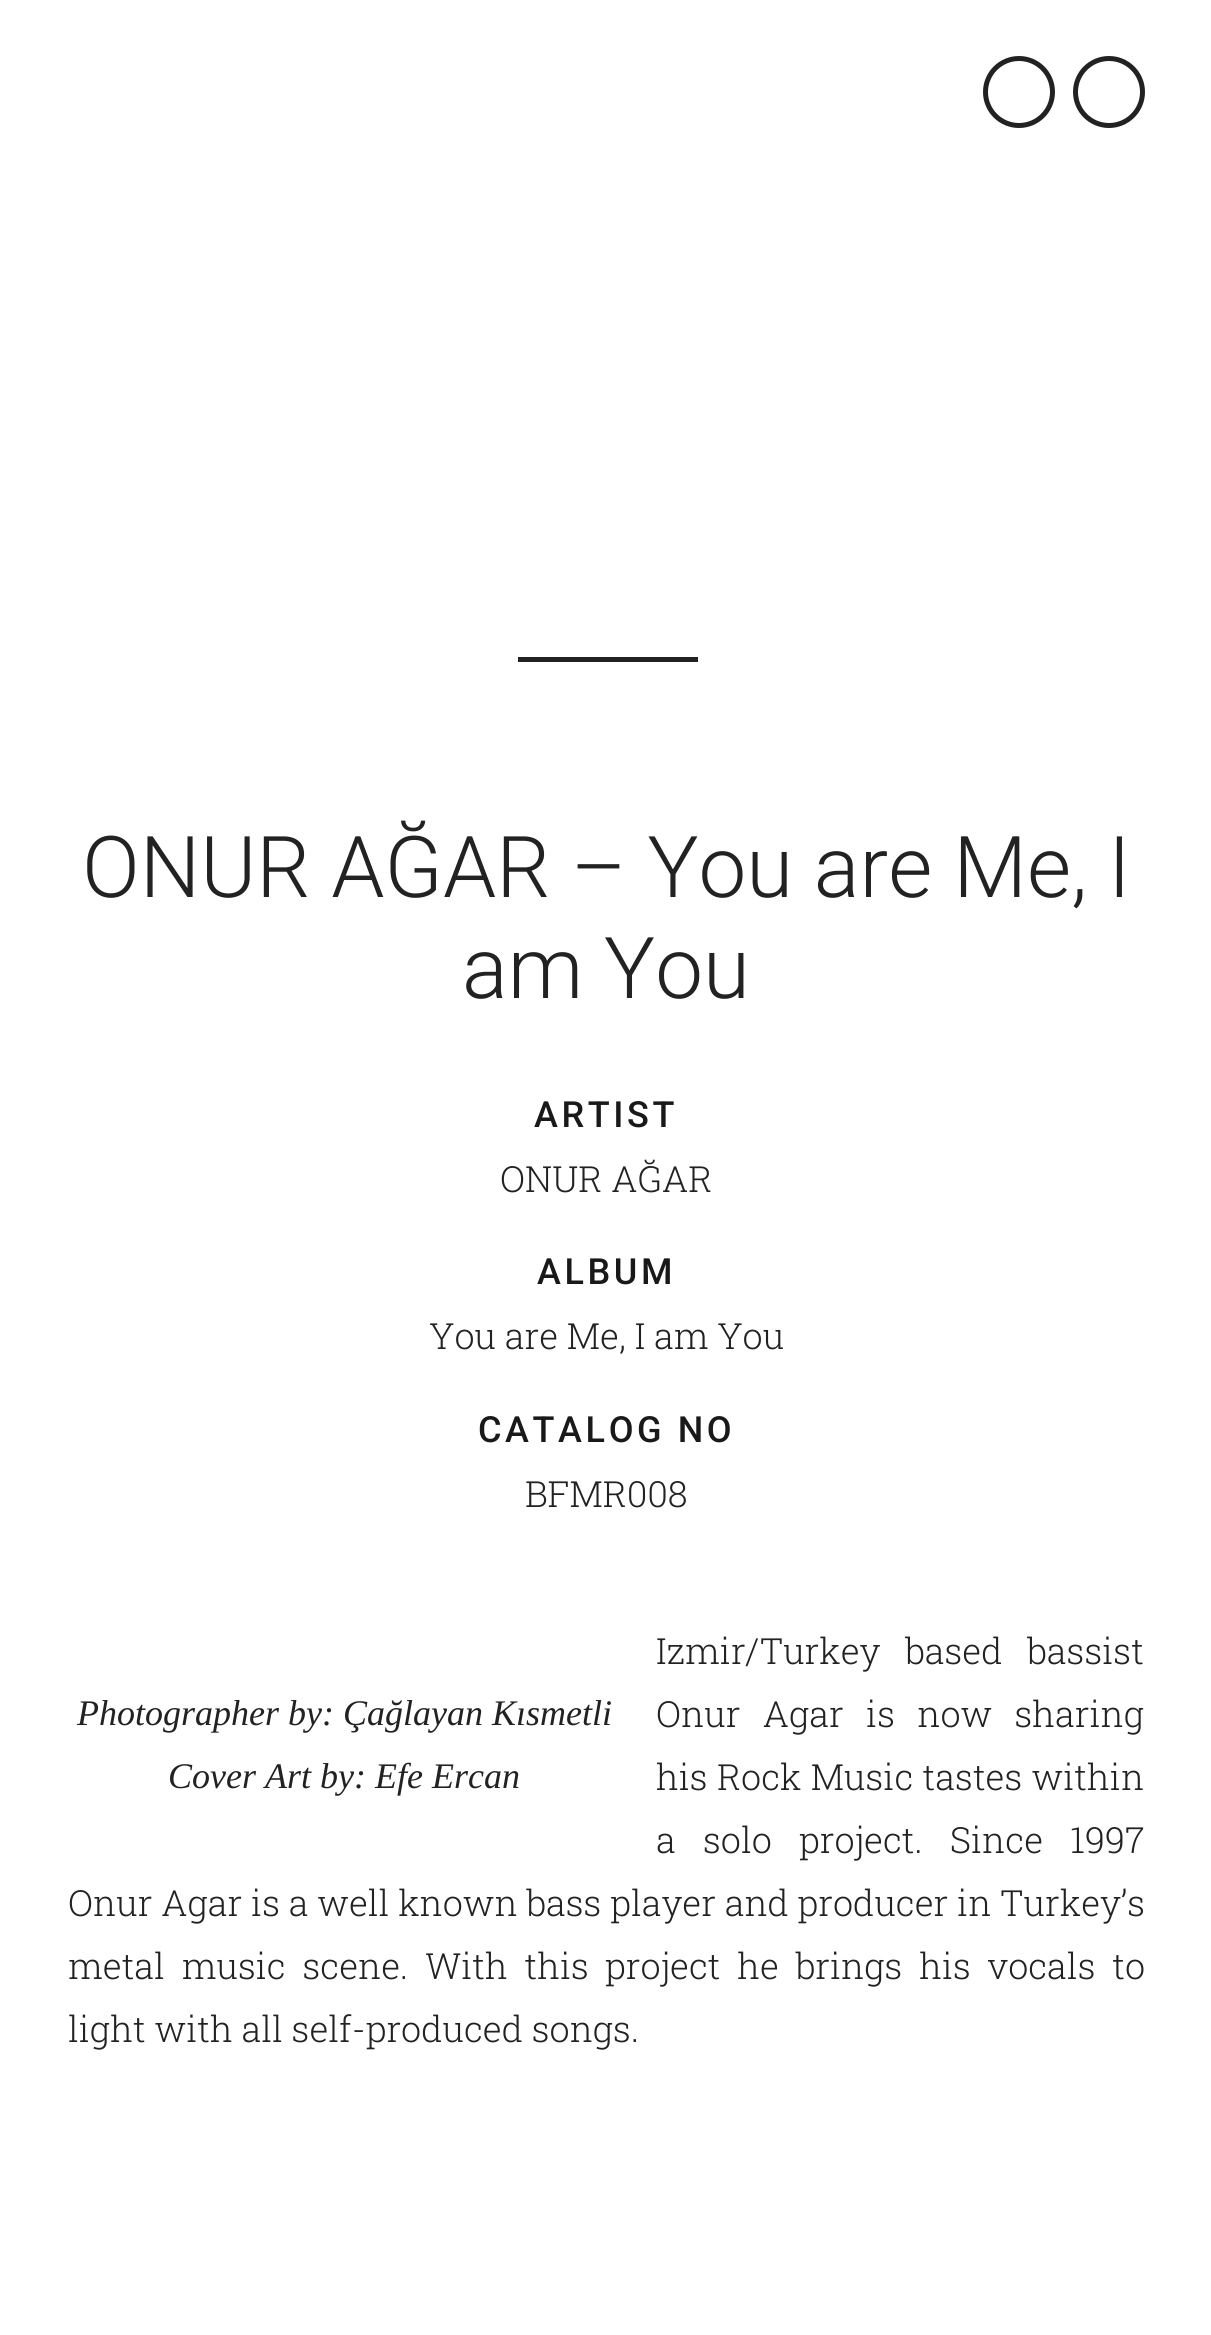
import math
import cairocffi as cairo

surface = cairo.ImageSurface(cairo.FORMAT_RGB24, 1211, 2335)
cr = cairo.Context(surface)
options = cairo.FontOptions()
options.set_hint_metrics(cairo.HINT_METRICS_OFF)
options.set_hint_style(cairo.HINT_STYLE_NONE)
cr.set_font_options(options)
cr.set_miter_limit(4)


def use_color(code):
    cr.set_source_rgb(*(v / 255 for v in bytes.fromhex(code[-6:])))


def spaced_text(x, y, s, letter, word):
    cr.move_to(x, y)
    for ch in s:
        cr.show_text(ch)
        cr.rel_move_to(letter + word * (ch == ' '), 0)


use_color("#ffffff")
cr.paint()
cr.arc(1019, 92, 33.5, 0, 2 * math.pi)
use_color("#222222")
cr.set_line_width(5)
cr.stroke()
cr.arc(1109, 92, 33.5, 0, 2 * math.pi)
cr.stroke()
cr.rectangle(518, 657, 180, 5)
cr.fill()
cr.select_font_face("Roboto Light")
cr.set_font_size(85.25)
cr.move_to(82, 897)
cr.show_text("ONUR AĞAR – You are Me, I")
cr.move_to(462, 998)
cr.show_text("am You")
cr.select_font_face("Roboto Medium")
cr.set_font_size(36)
use_color("#191919")
spaced_text(534, 1127, "ARTIST", 3.6, 0)
cr.select_font_face("Roboto Slab Light")
use_color("#222222")
cr.move_to(500, 1192)
cr.show_text("ONUR AĞAR")
cr.select_font_face("Roboto Medium")
use_color("#191919")
spaced_text(537, 1284, "ALBUM", 3.6, 0)
cr.select_font_face("Roboto Slab Light")
use_color("#222222")
cr.move_to(429, 1349)
cr.show_text("You are Me, I am You")
cr.select_font_face("Roboto Medium")
use_color("#191919")
spaced_text(478, 1442, "CATALOG NO", 3.6, 0)
cr.select_font_face("Roboto Slab Light")
use_color("#222222")
cr.move_to(525, 1507)
cr.show_text("BFMR008")
spaced_text(656, 1664, "Izmir/Turkey based bassist", 0, 16)
spaced_text(656, 1727, "Onur Agar is now sharing", 0, 13.5)
spaced_text(656, 1790, "his Rock Music tastes within", 0, 0.5)
spaced_text(656, 1853, "a solo project. Since 1997", 0, 18.5)
cr.move_to(68, 1916)
cr.show_text("Onur Agar is a well known bass player and producer in Turkey’s")
spaced_text(68, 1979, "metal music scene.", 0, 8)
spaced_text(425, 1979, "With this", 0, 8)
spaced_text(605, 1979, "project he brings his vocals to", 0, 8)
cr.move_to(68, 2042)
cr.show_text("light with all self-produced songs.")
cr.select_font_face("Liberation Serif", cairo.FONT_SLANT_ITALIC)
cr.move_to(77, 1725)
cr.show_text("Photographer by: Çağlayan Kısmetli")
cr.move_to(168, 1788)
cr.show_text("Cover Art by: Efe Ercan")
surface.write_to_png("result.png")
